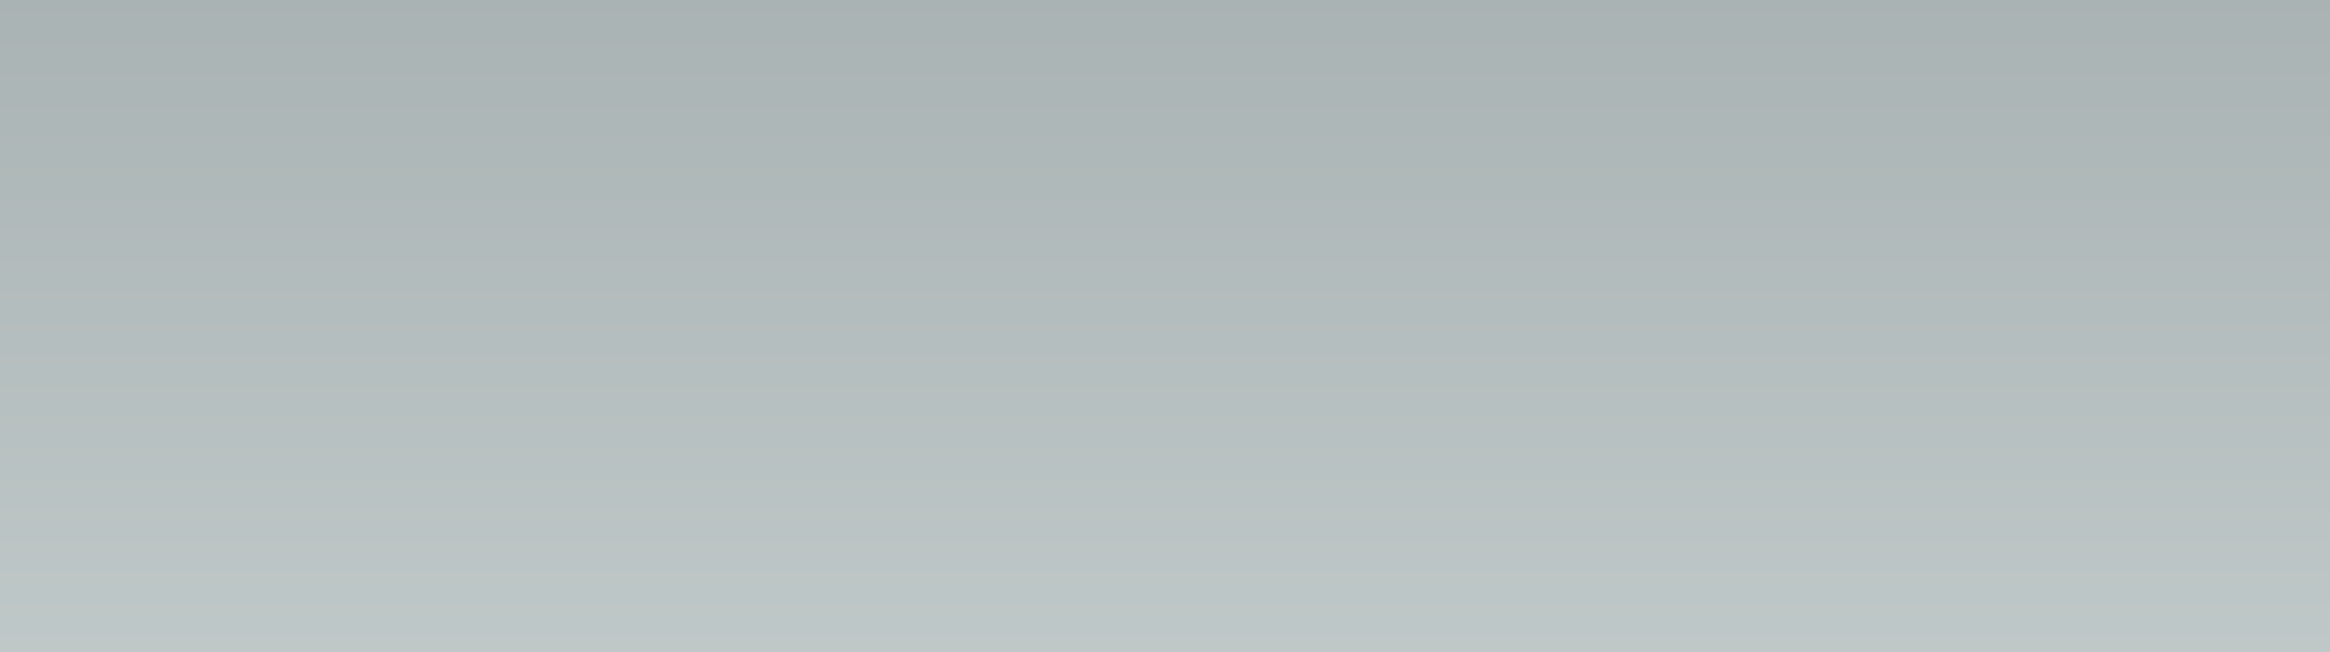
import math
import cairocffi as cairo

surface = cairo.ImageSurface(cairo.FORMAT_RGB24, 2330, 652)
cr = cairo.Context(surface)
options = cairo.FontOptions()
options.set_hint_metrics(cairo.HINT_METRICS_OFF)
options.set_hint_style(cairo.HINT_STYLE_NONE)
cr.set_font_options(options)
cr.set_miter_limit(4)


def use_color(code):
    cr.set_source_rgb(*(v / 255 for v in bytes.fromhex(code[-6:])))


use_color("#ffffff")
cr.paint()
gradient = cairo.LinearGradient(1165, 0, 1165, 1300)
gradient.add_color_stop_rgba(0, 0.667, 0.702, 0.702, 1)
gradient.add_color_stop_rgba(1, 0.831, 0.863, 0.863, 1)
cr.set_source(gradient)
cr.rectangle(0, 0, 2330, 652)
cr.fill()
surface.write_to_png("result.png")
